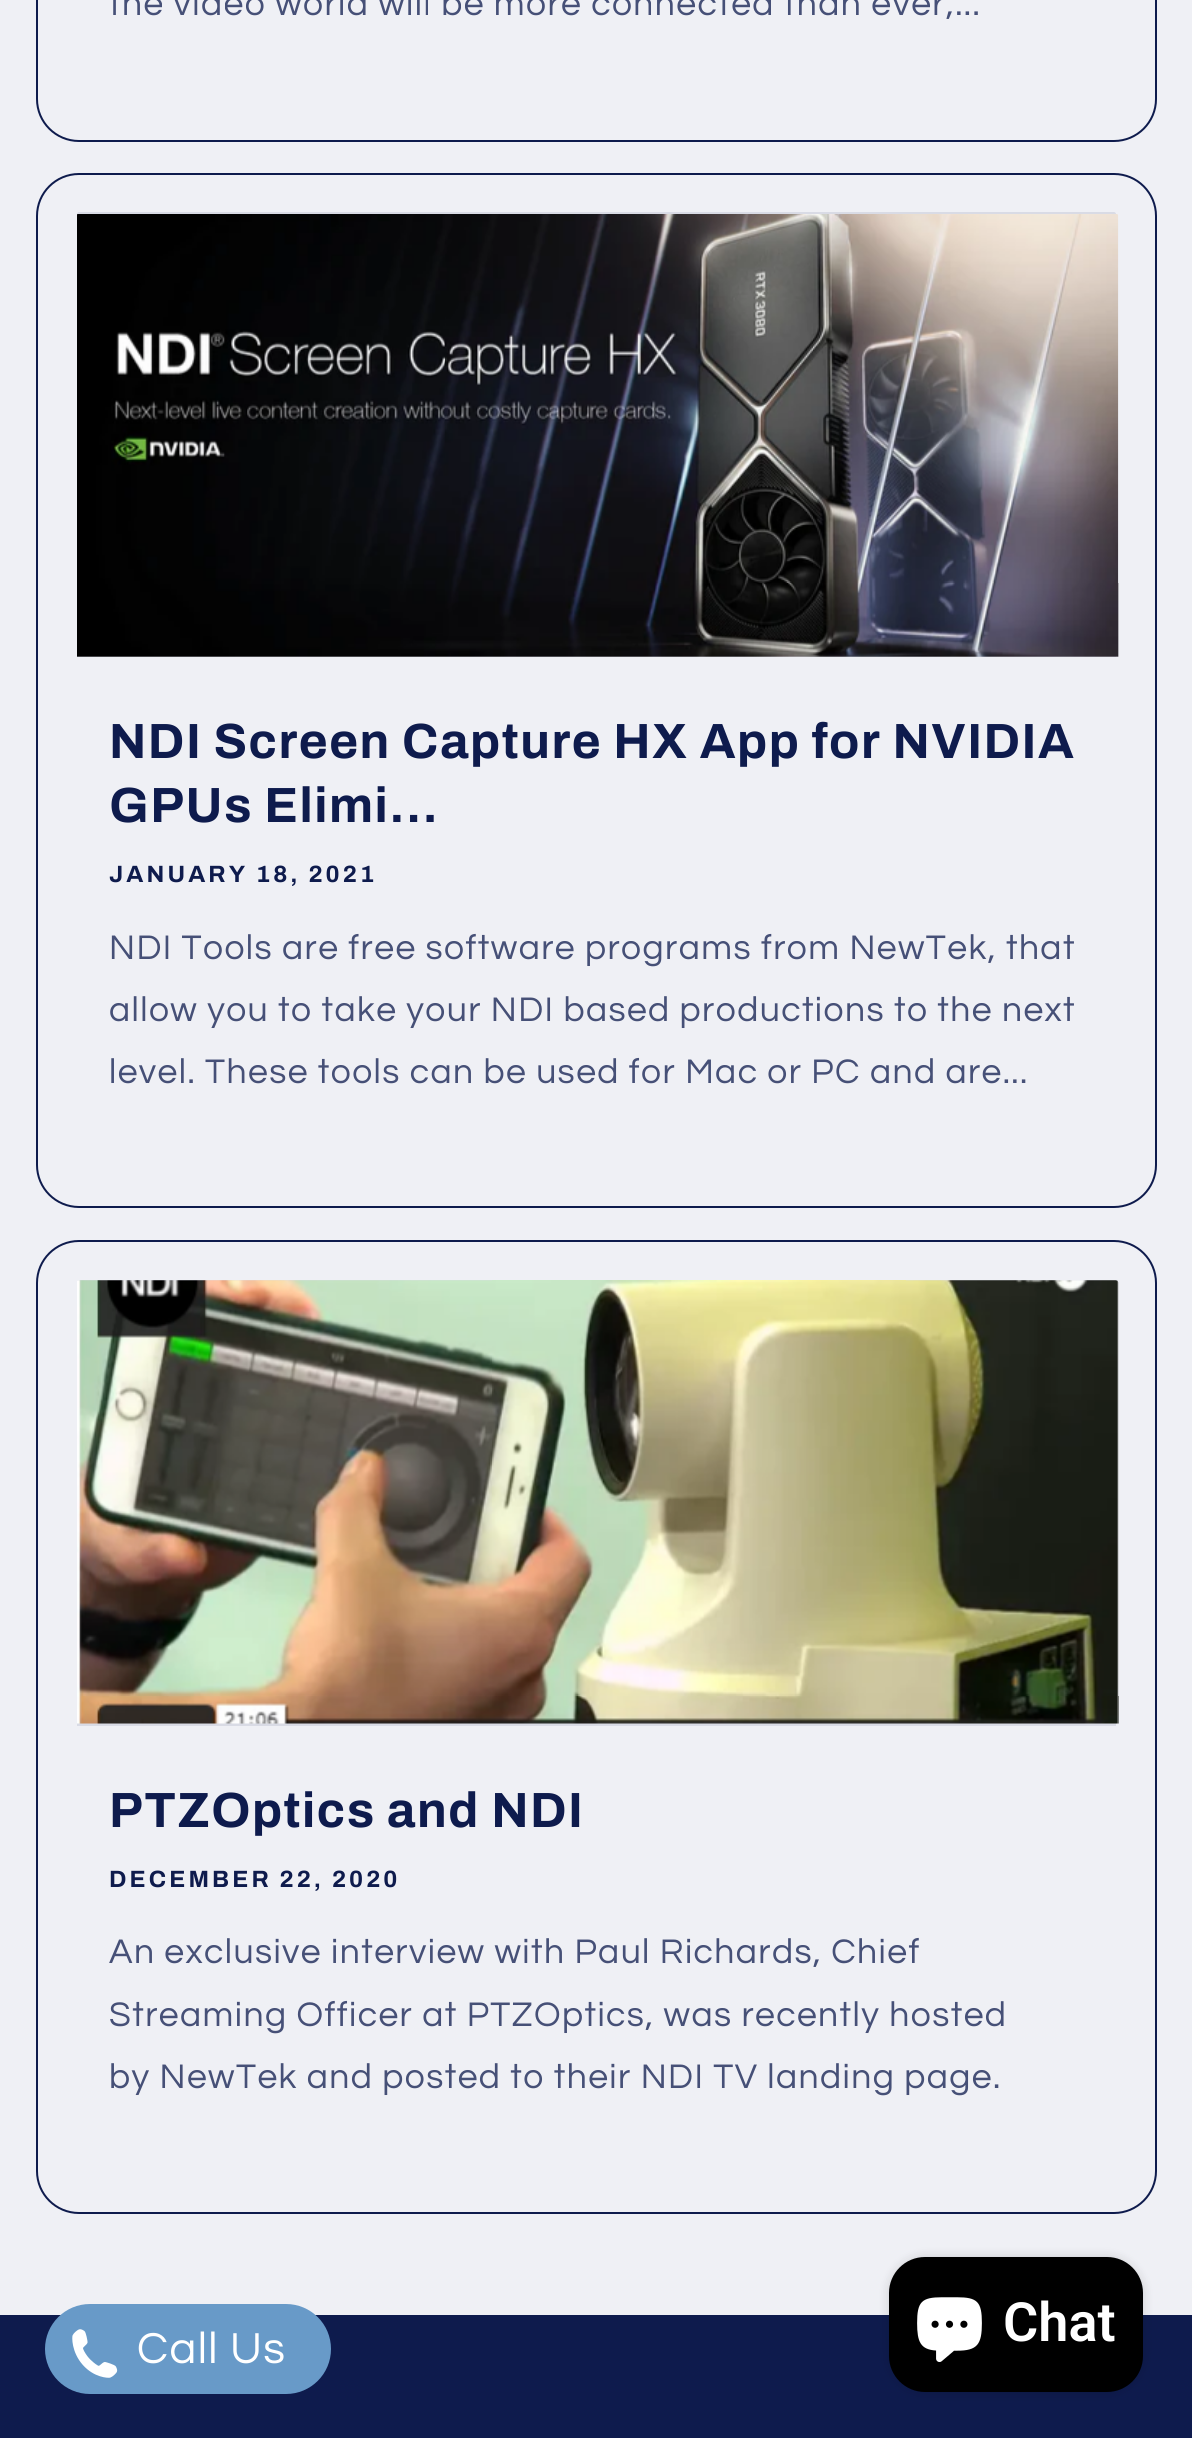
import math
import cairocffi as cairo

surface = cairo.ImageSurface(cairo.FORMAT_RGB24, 1192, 2438)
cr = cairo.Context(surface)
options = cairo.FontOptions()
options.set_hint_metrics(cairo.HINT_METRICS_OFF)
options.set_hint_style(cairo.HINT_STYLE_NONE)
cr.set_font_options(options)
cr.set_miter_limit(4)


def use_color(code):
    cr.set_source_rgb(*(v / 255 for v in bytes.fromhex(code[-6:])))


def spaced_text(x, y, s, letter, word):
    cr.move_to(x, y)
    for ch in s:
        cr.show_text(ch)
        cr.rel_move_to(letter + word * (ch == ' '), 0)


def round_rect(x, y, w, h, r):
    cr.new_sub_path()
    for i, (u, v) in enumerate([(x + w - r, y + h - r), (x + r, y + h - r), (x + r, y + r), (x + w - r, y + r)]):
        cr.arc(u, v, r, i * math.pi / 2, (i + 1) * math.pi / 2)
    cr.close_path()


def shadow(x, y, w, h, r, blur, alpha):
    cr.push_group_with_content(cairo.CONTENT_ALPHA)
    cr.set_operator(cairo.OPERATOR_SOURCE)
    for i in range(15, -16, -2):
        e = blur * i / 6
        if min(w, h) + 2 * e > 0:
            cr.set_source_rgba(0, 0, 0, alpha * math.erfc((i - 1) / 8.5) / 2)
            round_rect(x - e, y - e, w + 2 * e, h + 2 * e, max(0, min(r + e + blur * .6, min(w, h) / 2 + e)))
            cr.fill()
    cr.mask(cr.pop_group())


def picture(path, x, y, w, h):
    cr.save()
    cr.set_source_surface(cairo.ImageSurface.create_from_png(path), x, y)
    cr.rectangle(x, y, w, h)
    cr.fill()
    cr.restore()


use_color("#eff0f5")
cr.paint()
round_rect(37, -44, 1119, 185, 42)
use_color("#0e1b4d")
cr.stroke()
cr.select_font_face("Questrial")
cr.set_font_size(35.45)
use_color("#465077")
spaced_text(109, 15, "the video world will be more connected than ever,...", 1.42, 0)
round_rect(37, 174, 1119, 1033, 42)
use_color("#0e1b4d")
cr.stroke()
use_color("#d9dbe5")
cr.new_path()
cr.move_to(79, 212)
cr.line_to(1114, 212)
cr.curve_to(1115, 212, 1116, 213, 1116, 214)
cr.line_to(1116, 657)
cr.line_to(77, 657)
cr.line_to(77, 214)
cr.curve_to(77, 213, 78, 212, 79, 212)
cr.close_path()
cr.fill()
picture("img1.png", 77, 214, 1042, 443)
cr.select_font_face("Archivo", cairo.FONT_SLANT_NORMAL, cairo.FONT_WEIGHT_BOLD)
cr.set_font_size(49.5)
use_color("#0e1b4d")
spaced_text(109, 758, "NDI Screen Capture HX App for NVIDIA", 1.5, 0)
spaced_text(109, 822, "GPUs Elimi...", 1.5, 0)
cr.set_font_size(23.6)
spaced_text(109, 882, "JANUARY 18, 2021", 3.1, 0)
cr.select_font_face("Questrial")
cr.set_font_size(35.45)
use_color("#465077")
spaced_text(109, 959, "NDI Tools are free software programs from NewTek, that", 1.42, 0)
spaced_text(109, 1021, "allow you to take your NDI based productions to the next", 1.42, 0)
spaced_text(109, 1083, "level. These tools can be used for Mac or PC and are...", 1.42, 0)
round_rect(37, 1241, 1119, 972, 42)
use_color("#0e1b4d")
cr.stroke()
use_color("#d9dbe5")
cr.new_path()
cr.move_to(79, 1280)
cr.line_to(1114, 1280)
cr.curve_to(1115, 1280, 1116, 1281, 1116, 1282)
cr.line_to(1116, 1726)
cr.line_to(77, 1726)
cr.line_to(77, 1282)
cr.curve_to(77, 1281, 78, 1280, 79, 1280)
cr.close_path()
cr.fill()
picture("img2.png", 77, 1280, 1042, 444)
cr.select_font_face("Archivo", cairo.FONT_SLANT_NORMAL, cairo.FONT_WEIGHT_BOLD)
cr.set_font_size(49.5)
use_color("#0e1b4d")
spaced_text(109, 1827, "PTZOptics and NDI", 1.5, 0)
cr.set_font_size(23.6)
spaced_text(109, 1887, "DECEMBER 22, 2020", 3.1, 0)
cr.select_font_face("Questrial")
cr.set_font_size(35.45)
use_color("#465077")
spaced_text(109, 1963, "An exclusive interview with Paul Richards, Chief", 1.42, 0)
spaced_text(109, 2026, "Streaming Officer at PTZOptics, was recently hosted", 1.42, 0)
spaced_text(109, 2088, "by NewTek and posted to their NDI TV landing page.", 1.42, 0)
use_color("#0e1b4d")
cr.rectangle(0, 2315, 1192, 123)
cr.fill()
use_color("#000000")
shadow(889, 2257, 254, 135, 36, 5.5, 0.15)
use_color("#000000")
round_rect(889, 2257, 254, 135, 36)
cr.fill()
picture("img3.png", 917, 2297, 65, 65)
cr.select_font_face("Roboto SemiBold")
cr.set_font_size(54)
use_color("#ffffff")
cr.move_to(1003, 2341)
cr.show_text("Chat")
use_color("#689ac8")
round_rect(45, 2304, 286, 90, 45)
cr.fill()
picture("img4.png", 72, 2329, 46, 49)
cr.select_font_face("Questrial")
cr.set_font_size(45)
use_color("#ffffff")
spaced_text(137, 2363, "Call Us", 1.42, 0)
surface.write_to_png("result.png")
